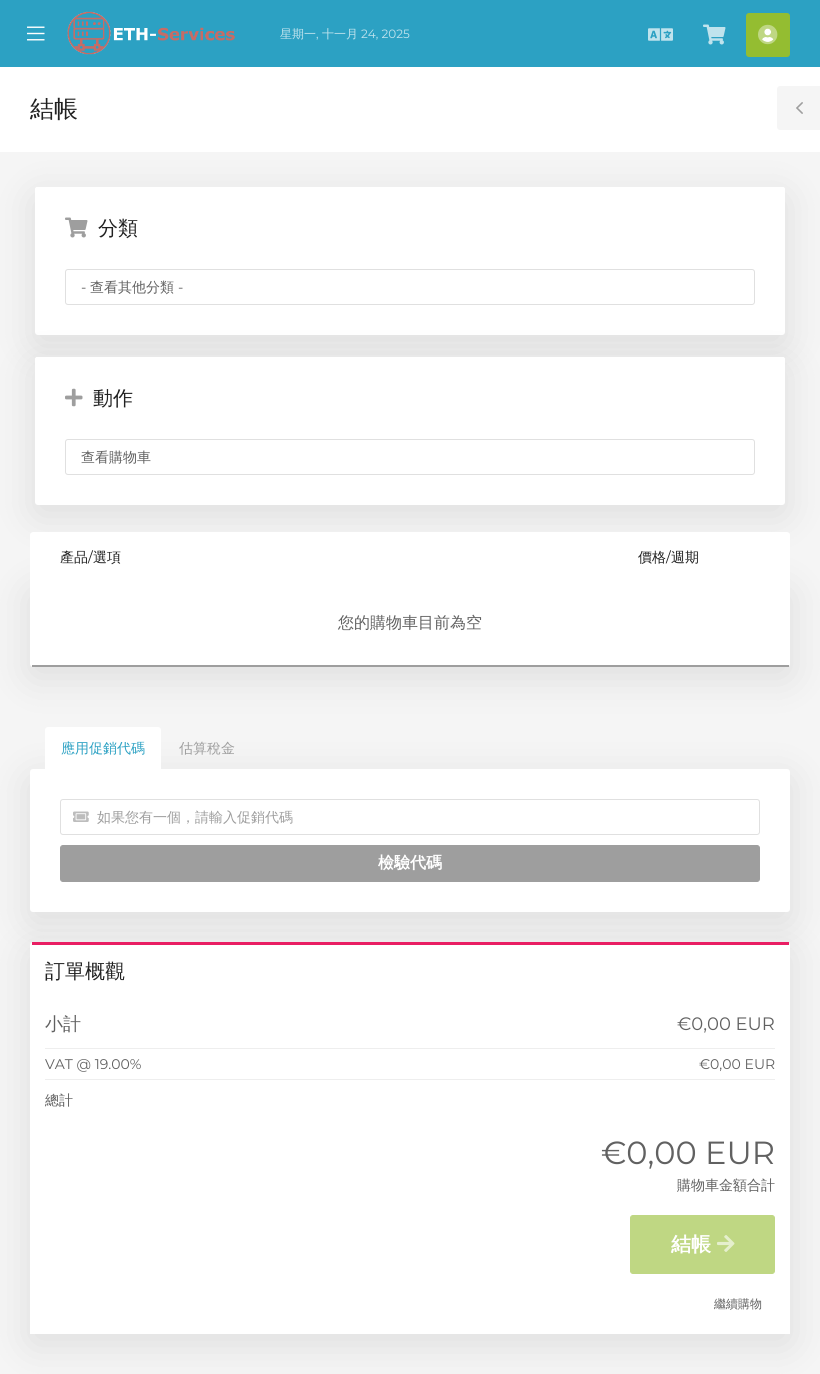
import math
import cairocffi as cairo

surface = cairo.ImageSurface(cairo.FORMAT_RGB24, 820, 1374)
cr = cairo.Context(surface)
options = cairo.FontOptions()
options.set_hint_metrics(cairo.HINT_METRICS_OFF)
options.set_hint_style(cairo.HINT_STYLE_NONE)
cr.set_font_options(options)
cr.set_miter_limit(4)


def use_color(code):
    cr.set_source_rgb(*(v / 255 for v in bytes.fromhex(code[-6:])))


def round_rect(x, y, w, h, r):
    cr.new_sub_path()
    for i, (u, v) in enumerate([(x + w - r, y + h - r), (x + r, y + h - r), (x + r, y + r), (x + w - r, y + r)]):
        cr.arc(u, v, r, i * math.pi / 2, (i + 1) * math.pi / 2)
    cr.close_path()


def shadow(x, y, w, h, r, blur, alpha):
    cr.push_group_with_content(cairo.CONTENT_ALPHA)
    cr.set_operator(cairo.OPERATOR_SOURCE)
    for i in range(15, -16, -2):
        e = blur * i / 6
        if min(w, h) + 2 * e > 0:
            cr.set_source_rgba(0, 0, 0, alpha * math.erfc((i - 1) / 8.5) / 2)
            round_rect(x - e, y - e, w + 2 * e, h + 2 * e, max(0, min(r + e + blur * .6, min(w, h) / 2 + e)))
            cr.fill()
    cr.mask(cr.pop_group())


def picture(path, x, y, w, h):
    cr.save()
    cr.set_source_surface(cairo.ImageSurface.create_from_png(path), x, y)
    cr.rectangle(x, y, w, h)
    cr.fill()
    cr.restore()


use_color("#f5f5f5")
cr.paint()
use_color("#2ca1c3")
cr.rectangle(0, 0, 820, 67)
cr.fill()
picture("img1.png", 27, 26, 18, 15)
picture("img2.png", 67, 11, 168, 44)
cr.select_font_face("WenQuanYi Zen Hei Medium")
cr.set_font_size(12)
use_color("#c0e3ed")
cr.move_to(280, 38)
cr.show_text("星期一")
cr.select_font_face("Montserrat")
cr.move_to(316, 38)
cr.show_text(",")
cr.select_font_face("WenQuanYi Zen Hei Medium")
cr.move_to(322, 38)
cr.show_text("十一月")
cr.select_font_face("Montserrat")
cr.move_to(361, 38)
cr.show_text("24, 2025")
picture("img3.png", 648, 28, 25, 13)
picture("img4.png", 703, 24, 23, 21)
use_color("#94bd31")
round_rect(746, 13, 44, 44, 3)
cr.fill()
picture("img6.png", 762, 28, 12, 14)
picture("img5.png", 758, 24, 20, 21)
use_color("#ffffff")
cr.rectangle(0, 67, 820, 85)
cr.fill()
cr.select_font_face("WenQuanYi Zen Hei Medium")
cr.set_font_size(24)
use_color("#212121")
cr.move_to(30, 117)
cr.show_text("結帳")
use_color("#f5f5f5")
cr.new_path()
cr.move_to(780, 86)
cr.line_to(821, 86)
cr.line_to(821, 130)
cr.line_to(780, 130)
cr.curve_to(778.5, 130, 777, 128.5, 777, 127)
cr.line_to(777, 89)
cr.curve_to(777, 87.5, 778.5, 86, 780, 86)
cr.close_path()
cr.fill()
picture("img7.png", 796, 102, 7, 12)
use_color("#000000")
shadow(35, 197, 750, 148, 3, 20, 0.1)
use_color("#ffffff")
round_rect(35, 187, 750, 148, 3)
cr.fill()
cr.new_path()
cr.move_to(37, 187)
cr.line_to(783, 187)
cr.curve_to(784, 187, 785, 188, 785, 189)
cr.line_to(785, 254)
cr.line_to(35, 254)
cr.line_to(35, 189)
cr.curve_to(35, 188, 36, 187, 37, 187)
cr.close_path()
cr.fill()
picture("img8.png", 65, 217, 23, 21)
cr.set_font_size(20)
use_color("#212121")
cr.move_to(98, 235)
cr.show_text("分類")
round_rect(65.5, 269.5, 689, 35, 2.5)
use_color("#e0e0e0")
cr.set_line_width(1)
cr.stroke()
cr.select_font_face("Montserrat")
cr.set_font_size(14)
use_color("#616161")
cr.move_to(81, 292)
cr.show_text("-")
cr.select_font_face("WenQuanYi Zen Hei Medium")
cr.move_to(90, 292)
cr.show_text("查看其他分類")
cr.select_font_face("Montserrat")
cr.move_to(178, 292)
cr.show_text("-")
use_color("#000000")
shadow(35, 367, 750, 148, 3, 20, 0.1)
use_color("#ffffff")
round_rect(35, 357, 750, 148, 3)
cr.fill()
cr.new_path()
cr.move_to(37, 357)
cr.line_to(783, 357)
cr.curve_to(784, 357, 785, 358, 785, 359)
cr.line_to(785, 424)
cr.line_to(35, 424)
cr.line_to(35, 359)
cr.curve_to(35, 358, 36, 357, 37, 357)
cr.close_path()
cr.fill()
picture("img9.png", 65, 388, 18, 19)
cr.select_font_face("WenQuanYi Zen Hei Medium")
cr.set_font_size(20)
use_color("#212121")
cr.move_to(93, 405)
cr.show_text("動作")
round_rect(65.5, 439.5, 689, 35, 2.5)
use_color("#e0e0e0")
cr.stroke()
cr.set_font_size(14)
use_color("#616161")
cr.move_to(81, 462)
cr.show_text("查看購物車")
use_color("#000000")
shadow(30, 779, 760, 143, 3, 20, 0.1)
use_color("#ffffff")
cr.new_path()
cr.move_to(48, 727)
cr.line_to(158, 727)
cr.curve_to(159.5, 727, 161, 728.5, 161, 730)
cr.line_to(161, 769)
cr.line_to(45, 769)
cr.line_to(45, 730)
cr.curve_to(45, 728.5, 46.5, 727, 48, 727)
cr.close_path()
cr.fill()
use_color("#000000")
shadow(30, 592, 760, 85, 3, 20, 0.1)
use_color("#ffffff")
cr.new_path()
cr.move_to(33, 532)
cr.line_to(787, 532)
cr.curve_to(788.5, 532, 790, 533.5, 790, 535)
cr.line_to(790, 582)
cr.line_to(30, 582)
cr.line_to(30, 535)
cr.curve_to(30, 533.5, 31.5, 532, 33, 532)
cr.close_path()
cr.fill()
use_color("#212121")
cr.move_to(60, 562)
cr.show_text("產品")
cr.select_font_face("Montserrat")
cr.move_to(88, 562)
cr.show_text("/")
cr.select_font_face("WenQuanYi Zen Hei Medium")
cr.move_to(93, 562)
cr.show_text("選項")
cr.move_to(638, 562)
cr.show_text("價格")
cr.select_font_face("Montserrat")
cr.move_to(666, 562)
cr.show_text("/")
cr.select_font_face("WenQuanYi Zen Hei Medium")
cr.move_to(671, 562)
cr.show_text("週期")
use_color("#ffffff")
cr.new_path()
cr.move_to(30, 582)
cr.line_to(790, 582)
cr.line_to(790, 664)
cr.curve_to(790, 665.5, 788.5, 667, 787, 667)
cr.line_to(33, 667)
cr.curve_to(31.5, 667, 30, 665.5, 30, 664)
cr.close_path()
cr.fill()
use_color("#9e9e9e")
cr.rectangle(32, 665, 757, 2)
cr.fill()
cr.set_font_size(16)
use_color("#616161")
cr.move_to(338, 628)
cr.show_text("您的購物車目前為空")
cr.set_font_size(14)
use_color("#2ca1c3")
cr.move_to(61, 753)
cr.show_text("應用促銷代碼")
use_color("#9e9e9e")
cr.move_to(179, 753)
cr.show_text("估算稅金")
use_color("#ffffff")
round_rect(30, 769, 760, 143, 3)
cr.fill()
round_rect(60.5, 799.5, 699, 35, 2.5)
use_color("#e0e0e0")
cr.stroke()
picture("img10.png", 73, 811, 16, 11)
use_color("#9e9e9e")
cr.move_to(97, 822)
cr.show_text("如果您有一個，請輸入促銷代碼")
round_rect(60.5, 845.5, 699, 36, 2.5)
cr.fill_preserve()
cr.stroke()
cr.select_font_face("WenQuanYi Zen Hei", cairo.FONT_SLANT_NORMAL, cairo.FONT_WEIGHT_BOLD)
cr.set_font_size(16)
use_color("#ffffff")
cr.move_to(378, 868)
cr.show_text("檢驗代碼")
use_color("#000000")
shadow(30, 952, 760, 392, 3, 20, 0.1)
use_color("#ffffff")
cr.new_path()
cr.move_to(33, 942)
cr.line_to(787, 942)
cr.curve_to(788.5, 942, 790, 943.5, 790, 945)
cr.line_to(790, 1334)
cr.line_to(30, 1334)
cr.line_to(30, 945)
cr.curve_to(30, 943.5, 31.5, 942, 33, 942)
cr.close_path()
cr.fill()
use_color("#e91e63")
cr.rectangle(32, 942, 757, 3)
cr.fill()
cr.select_font_face("WenQuanYi Zen Hei Medium")
cr.set_font_size(20)
use_color("#212121")
cr.move_to(45, 978)
cr.show_text("訂單概觀")
use_color("#eeeeee")
cr.rectangle(45, 1048, 730, 1)
cr.fill()
cr.set_font_size(18)
use_color("#616161")
cr.move_to(45, 1030)
cr.show_text("小計")
cr.select_font_face("Montserrat")
cr.move_to(677, 1030)
cr.show_text("€0,00 EUR")
use_color("#eeeeee")
cr.rectangle(45, 1079, 730, 1)
cr.fill()
cr.set_font_size(14)
use_color("#616161")
cr.move_to(45, 1069)
cr.show_text("VAT @ 19.00%")
cr.move_to(699, 1069)
cr.show_text("€0,00 EUR")
cr.select_font_face("WenQuanYi Zen Hei Medium")
cr.move_to(45, 1105)
cr.show_text("總計")
cr.select_font_face("Montserrat")
cr.set_font_size(32)
cr.move_to(601, 1164)
cr.show_text("€0,00 EUR")
cr.select_font_face("WenQuanYi Zen Hei Medium")
cr.set_font_size(14)
cr.move_to(677, 1190)
cr.show_text("購物車金額合計")
use_color("#bfd783")
round_rect(630.5, 1215.5, 144, 58, 2.5)
cr.fill_preserve()
cr.stroke()
cr.select_font_face("WenQuanYi Zen Hei", cairo.FONT_SLANT_NORMAL, cairo.FONT_WEIGHT_BOLD)
cr.set_font_size(20)
use_color("#ffffff")
cr.move_to(671, 1251)
cr.show_text("結帳")
picture("img11.png", 717, 1235, 18, 17)
cr.select_font_face("WenQuanYi Zen Hei Medium")
cr.set_font_size(12)
use_color("#616161")
cr.move_to(714, 1308)
cr.show_text("繼續購物")
surface.write_to_png("result.png")
